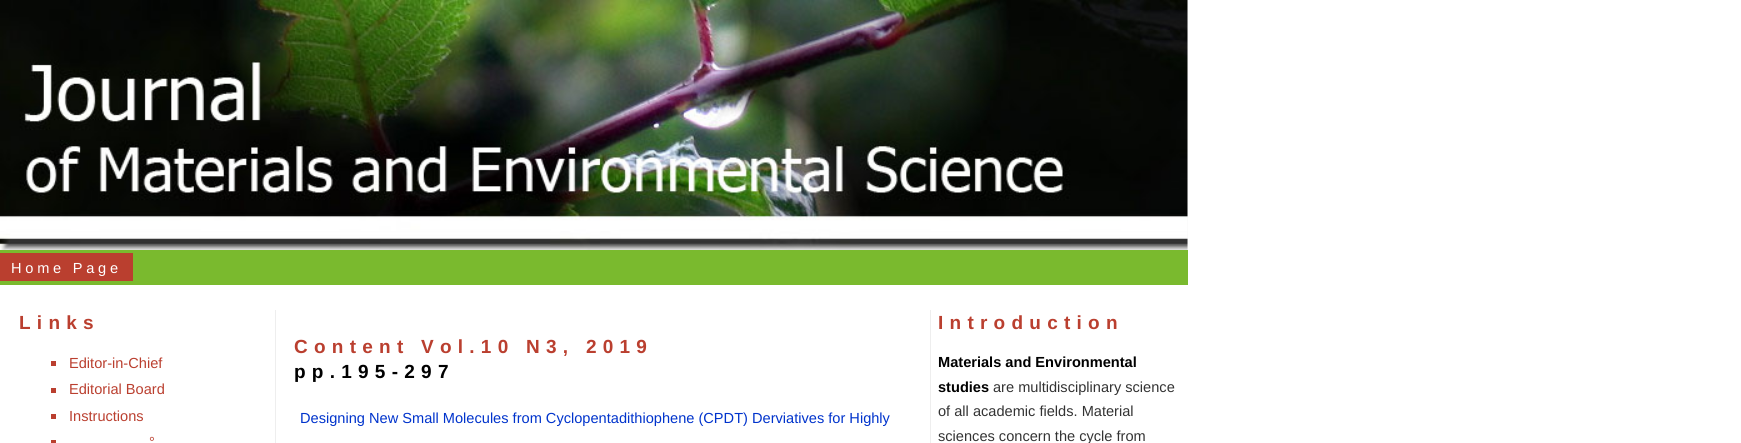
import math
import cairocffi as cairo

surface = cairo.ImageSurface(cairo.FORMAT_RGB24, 1741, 443)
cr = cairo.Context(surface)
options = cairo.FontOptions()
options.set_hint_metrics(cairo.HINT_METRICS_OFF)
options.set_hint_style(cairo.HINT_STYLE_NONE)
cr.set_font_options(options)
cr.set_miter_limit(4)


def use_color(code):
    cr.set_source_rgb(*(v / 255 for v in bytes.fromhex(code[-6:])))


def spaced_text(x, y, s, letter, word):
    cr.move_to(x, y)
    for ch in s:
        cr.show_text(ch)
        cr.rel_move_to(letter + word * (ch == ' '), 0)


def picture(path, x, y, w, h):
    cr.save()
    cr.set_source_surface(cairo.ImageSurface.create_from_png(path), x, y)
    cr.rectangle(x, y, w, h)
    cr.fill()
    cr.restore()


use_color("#ffffff")
cr.paint()
use_color("#f7f7f7")
cr.rectangle(1187, 0, 1, 250)
cr.fill()
picture("img1.png", 0, 0, 1188, 250)
use_color("#7aba2e")
cr.rectangle(0, 250, 1188, 35)
cr.fill()
use_color("#ba3f2f")
cr.rectangle(0, 253, 133, 28)
cr.fill()
cr.select_font_face("Liberation Sans")
cr.set_font_size(14.6)
use_color("#ffffff")
spaced_text(11, 273, "Home Page", 3.75, 0)
use_color("#eeeeee")
cr.rectangle(275, 310, 1, 133)
cr.fill()
cr.select_font_face("Liberation Sans", cairo.FONT_SLANT_NORMAL, cairo.FONT_WEIGHT_BOLD)
cr.set_font_size(19)
use_color("#ba3f2f")
spaced_text(19, 329, "Links", 6.25, 0)
cr.rectangle(51, 361, 5, 5)
cr.fill()
cr.select_font_face("Liberation Sans")
cr.set_font_size(14.6)
cr.move_to(69, 368)
cr.show_text("Editor-in-Chief")
cr.rectangle(51, 388, 5, 5)
cr.fill()
cr.move_to(69, 394)
cr.show_text("Editorial Board")
cr.rectangle(51, 414, 5, 5)
cr.fill()
cr.move_to(69, 421)
cr.show_text("Instructions")
cr.move_to(149, 447)
cr.show_text("°")
cr.rectangle(51, 440, 5, 3)
cr.fill()
cr.select_font_face("Liberation Sans", cairo.FONT_SLANT_NORMAL, cairo.FONT_WEIGHT_BOLD)
cr.set_font_size(19)
spaced_text(294, 353, "Content Vol.10 N3, 2019", 6.25, 0)
use_color("#000000")
spaced_text(294, 378, "pp.195-297", 6.25, 0)
cr.select_font_face("Liberation Sans")
cr.set_font_size(14.6)
use_color("#0033cc")
cr.move_to(300, 423)
cr.show_text("Designing New Small Molecules from Cyclopentadithiophene (CPDT) Derviatives for Highly")
use_color("#eeeeee")
cr.rectangle(930, 310, 1, 133)
cr.fill()
cr.select_font_face("Liberation Sans", cairo.FONT_SLANT_NORMAL, cairo.FONT_WEIGHT_BOLD)
cr.set_font_size(19)
use_color("#ba3f2f")
spaced_text(938, 329, "Introduction", 6.25, 0)
cr.set_font_size(14.6)
use_color("#000000")
cr.move_to(938, 367)
cr.show_text("Materials and Environmental")
cr.move_to(938, 392)
cr.show_text("studies")
cr.select_font_face("Liberation Sans")
use_color("#333333")
cr.move_to(993, 392)
cr.show_text("are multidisciplinary science")
cr.move_to(938, 416)
cr.show_text("of all academic fields. Material")
cr.move_to(938, 441)
cr.show_text("sciences concern the cycle from")
surface.write_to_png("result.png")
